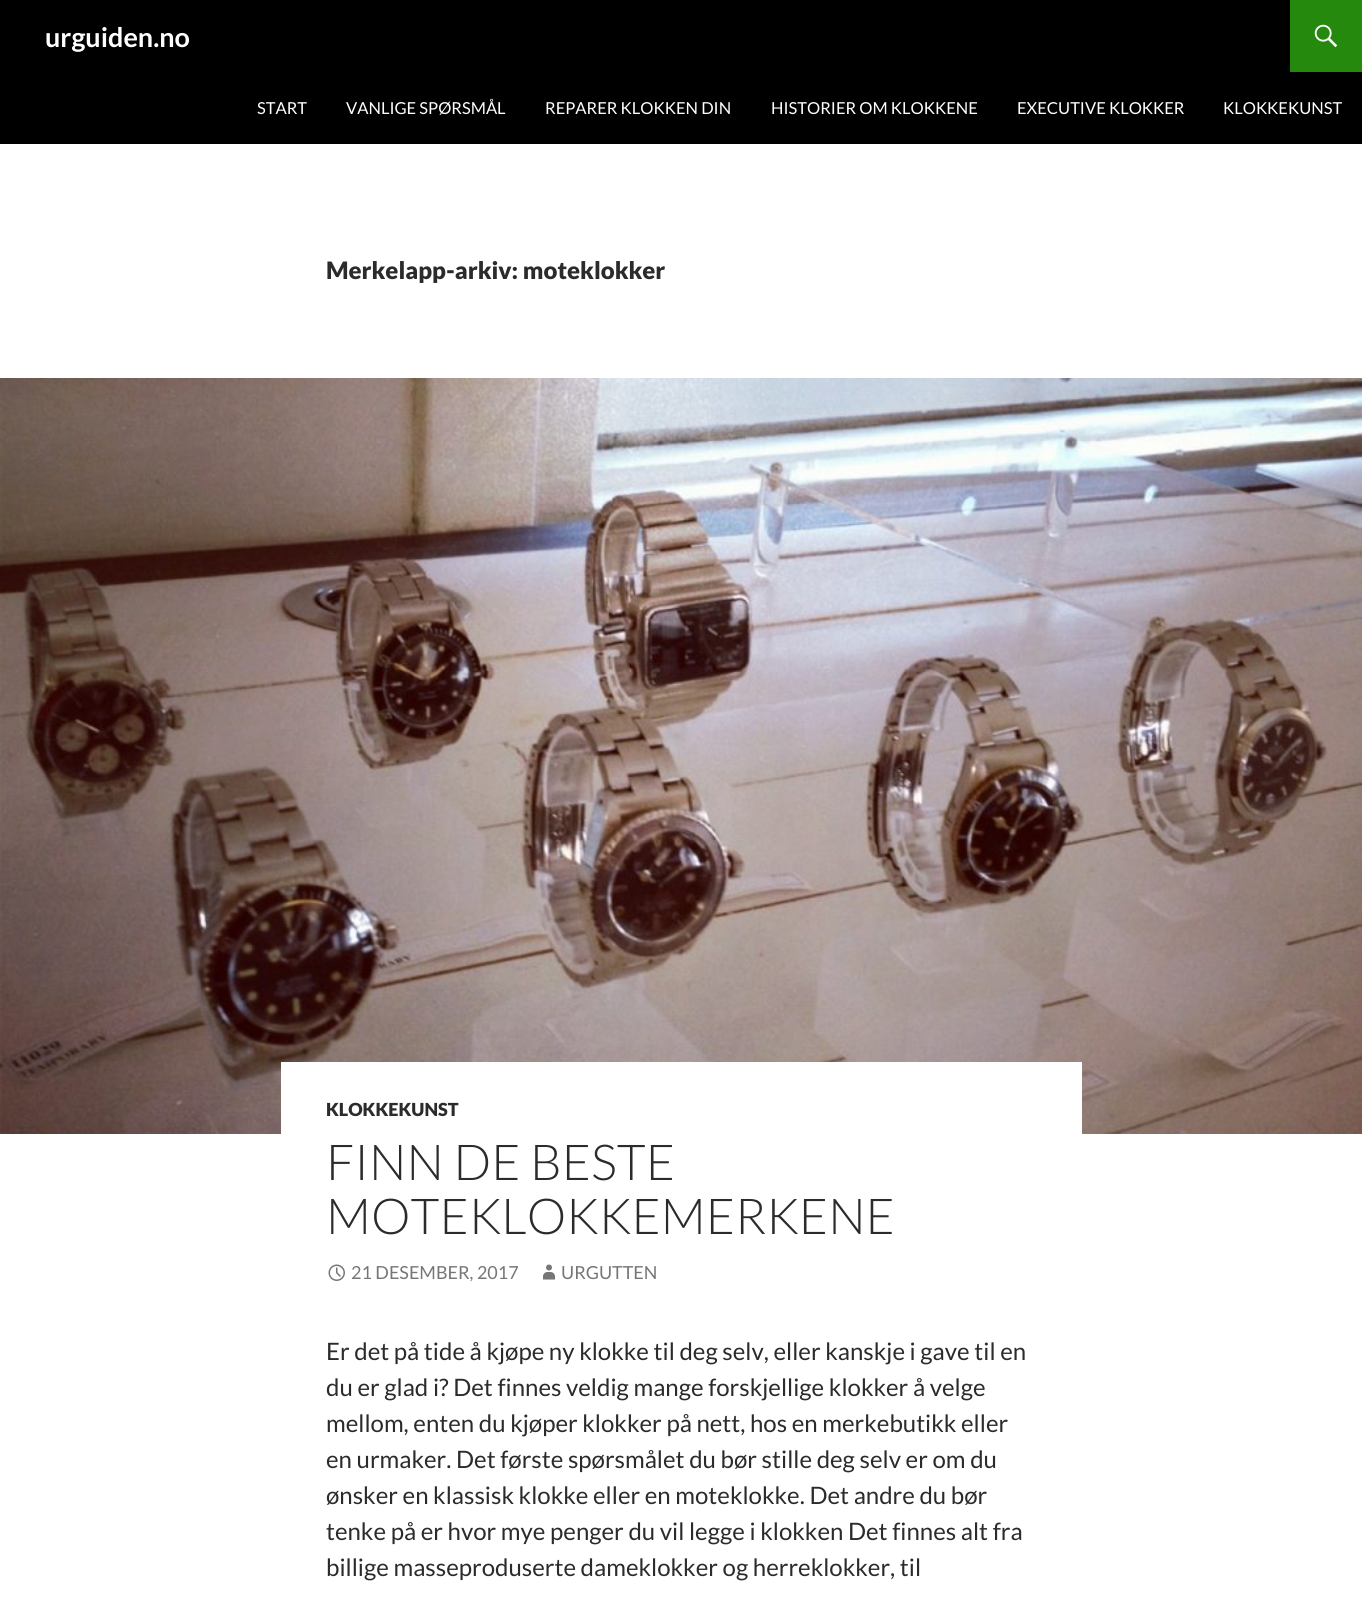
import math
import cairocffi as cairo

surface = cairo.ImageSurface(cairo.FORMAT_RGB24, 1362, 1601)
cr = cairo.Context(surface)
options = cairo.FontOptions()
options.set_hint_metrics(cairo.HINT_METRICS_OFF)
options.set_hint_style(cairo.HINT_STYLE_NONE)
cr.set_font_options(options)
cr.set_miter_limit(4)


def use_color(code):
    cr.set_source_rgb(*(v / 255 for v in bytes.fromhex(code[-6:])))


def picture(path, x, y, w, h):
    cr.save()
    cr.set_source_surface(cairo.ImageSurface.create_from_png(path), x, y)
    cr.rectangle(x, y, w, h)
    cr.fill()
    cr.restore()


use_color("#ffffff")
cr.paint()
use_color("#000000")
cr.rectangle(0, 0, 1362, 144)
cr.fill()
cr.select_font_face("Lato", cairo.FONT_SLANT_NORMAL, cairo.FONT_WEIGHT_BOLD)
cr.set_font_size(27)
use_color("#ffffff")
cr.move_to(45, 47)
cr.show_text("urguiden.no")
use_color("#24890d")
cr.rectangle(1290, 0, 72, 72)
cr.fill()
picture("img1.png", 1314, 24, 24, 24)
cr.select_font_face("Lato")
cr.set_font_size(16.5)
use_color("#ffffff")
cr.move_to(257, 114)
cr.show_text("START")
cr.move_to(346, 114)
cr.show_text("VANLIGE SPØRSMÅL")
cr.move_to(545, 114)
cr.show_text("REPARER KLOKKEN DIN")
cr.move_to(771, 114)
cr.show_text("HISTORIER OM KLOKKENE")
cr.move_to(1017, 114)
cr.show_text("EXECUTIVE KLOKKER")
cr.move_to(1223, 114)
cr.show_text("KLOKKEKUNST")
cr.select_font_face("Lato Black")
cr.set_font_size(24)
use_color("#2b2b2b")
cr.move_to(326, 279)
cr.show_text("Merkelapp-arkiv: moteklokker")
picture("img2.png", 0, 378, 1362, 756)
use_color("#ffffff")
cr.rectangle(281, 1062, 801, 72)
cr.fill()
cr.set_font_size(18)
use_color("#2b2b2b")
cr.move_to(326, 1116)
cr.show_text("KLOKKEKUNST")
cr.select_font_face("Lato Light")
cr.set_font_size(49.5)
cr.move_to(326, 1180)
cr.show_text("FINN DE BESTE")
cr.move_to(326, 1234)
cr.show_text("MOTEKLOKKEMERKENE")
picture("img3.png", 328, 1264, 17, 17)
cr.select_font_face("Lato")
cr.set_font_size(18)
use_color("#767676")
cr.move_to(351, 1279)
cr.show_text("21 DESEMBER, 2017")
picture("img4.png", 543, 1264, 12, 16)
cr.move_to(561, 1279)
cr.show_text("URGUTTEN")
cr.set_font_size(24)
use_color("#2b2b2b")
cr.move_to(326, 1360)
cr.show_text("Er det på tide å kjøpe ny klokke til deg selv, eller kanskje i gave til en")
cr.move_to(326, 1396)
cr.show_text("du er glad i? Det finnes veldig mange forskjellige klokker å velge")
cr.move_to(326, 1432)
cr.show_text("mellom, enten du kjøper klokker på nett, hos en merkebutikk eller")
cr.move_to(326, 1468)
cr.show_text("en urmaker. Det første spørsmålet du bør stille deg selv er om du")
cr.move_to(326, 1504)
cr.show_text("ønsker en klassisk klokke eller en moteklokke. Det andre du bør")
cr.move_to(326, 1540)
cr.show_text("tenke på er hvor mye penger du vil legge i klokken Det finnes alt fra")
cr.move_to(326, 1576)
cr.show_text("billige masseproduserte dameklokker og herreklokker, til")
surface.write_to_png("result.png")
